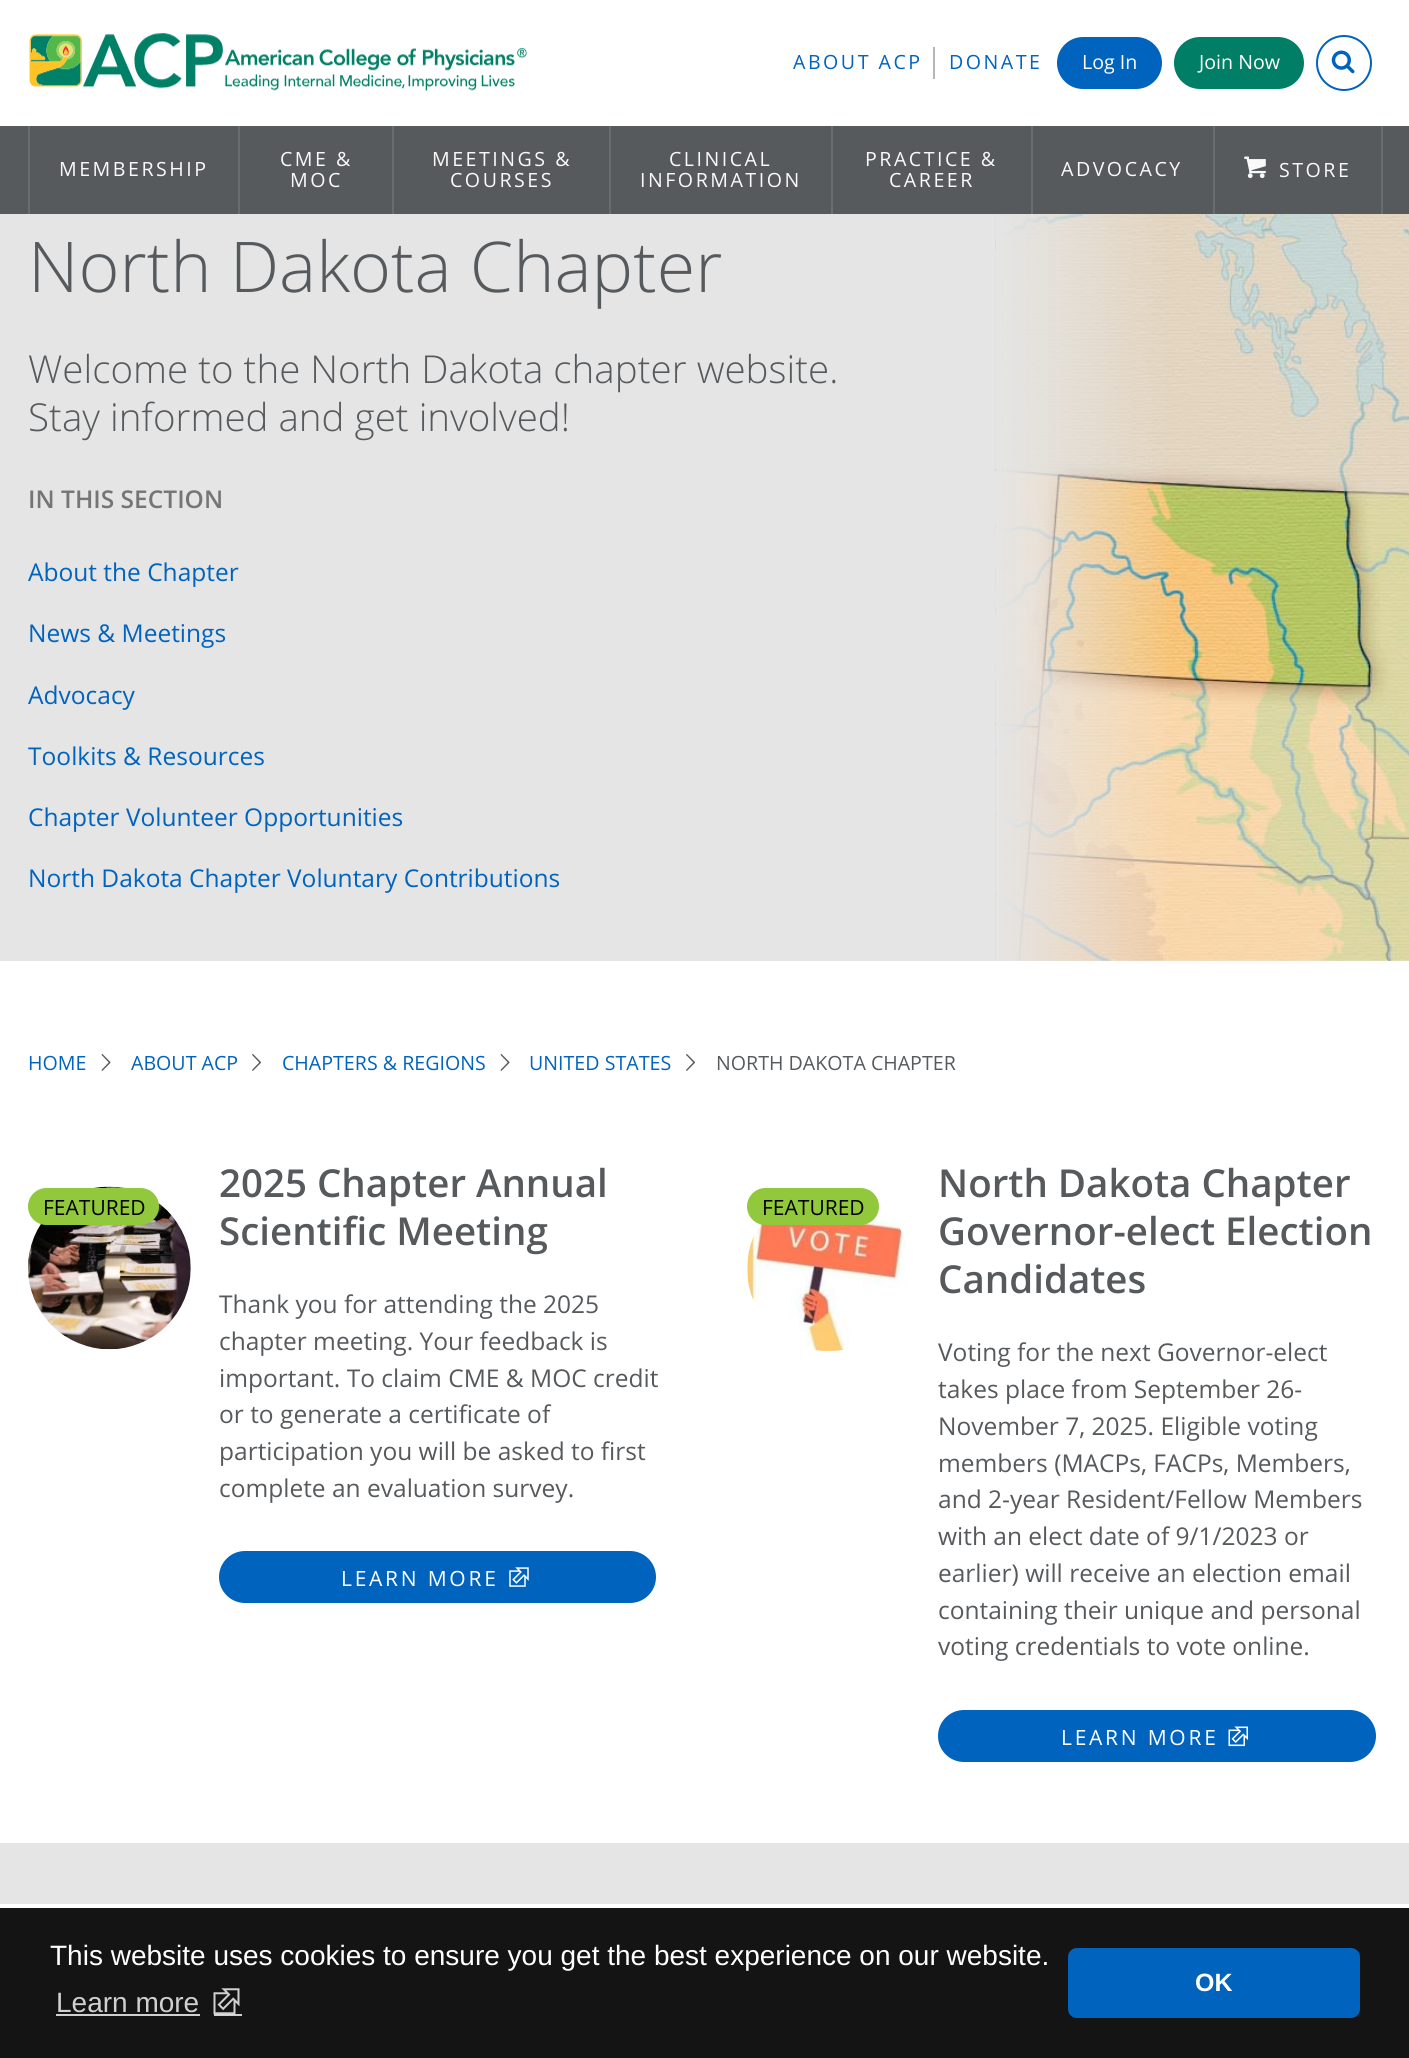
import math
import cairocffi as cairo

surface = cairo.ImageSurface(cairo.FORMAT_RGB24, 1409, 2058)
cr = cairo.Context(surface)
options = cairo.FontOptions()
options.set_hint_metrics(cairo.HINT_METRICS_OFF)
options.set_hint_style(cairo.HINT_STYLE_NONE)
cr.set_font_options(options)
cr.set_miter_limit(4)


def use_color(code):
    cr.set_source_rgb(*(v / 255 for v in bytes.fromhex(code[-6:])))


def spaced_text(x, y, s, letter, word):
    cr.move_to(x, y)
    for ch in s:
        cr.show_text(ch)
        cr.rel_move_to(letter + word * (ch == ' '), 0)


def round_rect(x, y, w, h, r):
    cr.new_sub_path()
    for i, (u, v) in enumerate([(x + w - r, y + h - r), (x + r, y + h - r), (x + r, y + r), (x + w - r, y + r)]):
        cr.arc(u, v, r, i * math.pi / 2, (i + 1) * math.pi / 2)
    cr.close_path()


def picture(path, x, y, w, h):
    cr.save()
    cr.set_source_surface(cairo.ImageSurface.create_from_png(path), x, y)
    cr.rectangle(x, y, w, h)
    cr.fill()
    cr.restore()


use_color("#ffffff")
cr.paint()
picture("img1.png", 29, 33, 498, 59)
use_color("#b5b7b4")
cr.rectangle(933, 47, 2, 32)
cr.fill()
cr.select_font_face("Open Sans")
cr.set_font_size(19.6)
use_color("#0063be")
spaced_text(793, 69, "ABOUT ACP", 2.5, 0)
spaced_text(949, 69, "DONATE", 2.5, 0)
round_rect(1057, 37, 105, 52, 26)
cr.fill()
use_color("#ffffff")
cr.move_to(1082, 69)
cr.show_text("Log In")
use_color("#007e66")
round_rect(1174, 37, 130, 52, 26)
cr.fill()
use_color("#ffffff")
cr.move_to(1199, 69)
cr.show_text("Join Now")
cr.new_path()
cr.arc(1344, 63, 27, 0, 2 * math.pi)
use_color("#0063be")
cr.stroke()
picture("img2.png", 1331, 50, 24, 24)
use_color("#575a5d")
cr.rectangle(0, 126, 1409, 88)
cr.fill()
use_color("#686e70")
cr.rectangle(238, 126, 2, 88)
cr.fill()
cr.rectangle(28, 126, 2, 88)
cr.fill()
use_color("#f9f9f9")
spaced_text(59, 176, "MEMBERSHIP", 2.5, 0)
use_color("#686e70")
cr.rectangle(392, 126, 2, 88)
cr.fill()
use_color("#f9f9f9")
spaced_text(280, 166, "CME &", 2.5, 0)
spaced_text(290, 187, "MOC", 2.5, 0)
use_color("#686e70")
cr.rectangle(609, 126, 2, 88)
cr.fill()
use_color("#f9f9f9")
spaced_text(432, 166, "MEETINGS &", 2.5, 0)
spaced_text(450, 187, "COURSES", 2.5, 0)
use_color("#686e70")
cr.rectangle(831, 126, 2, 88)
cr.fill()
use_color("#f9f9f9")
spaced_text(669, 166, "CLINICAL", 2.5, 0)
spaced_text(640, 187, "INFORMATION", 2.5, 0)
use_color("#686e70")
cr.rectangle(1031, 126, 2, 88)
cr.fill()
use_color("#f9f9f9")
spaced_text(865, 166, "PRACTICE &", 2.5, 0)
spaced_text(889, 187, "CAREER", 2.5, 0)
use_color("#686e70")
cr.rectangle(1213, 126, 2, 88)
cr.fill()
use_color("#f9f9f9")
spaced_text(1061, 176, "ADVOCACY", 2.5, 0)
use_color("#686e70")
cr.rectangle(1381, 126, 2, 88)
cr.fill()
picture("img3.png", 1244, 156, 22, 23)
use_color("#f9f9f9")
spaced_text(1279, 177, "STORE", 2.5, 0)
use_color("#e5e5e5")
cr.rectangle(0, 214, 1409, 747)
cr.fill()
cr.select_font_face("Open Sans Light")
cr.set_font_size(70)
use_color("#575a5d")
cr.move_to(28, 292)
cr.show_text("North Dakota Chapter")
cr.set_font_size(38.5)
cr.move_to(28, 383)
cr.show_text("Welcome to the North Dakota chapter website.")
cr.move_to(28, 431)
cr.show_text("Stay informed and get involved!")
cr.select_font_face("Open Sans SemiBold")
cr.set_font_size(24.5)
use_color("#747674")
cr.move_to(28, 508)
cr.show_text("IN THIS SECTION")
cr.select_font_face("Open Sans")
use_color("#0063be")
cr.move_to(28, 581)
cr.show_text("About the Chapter")
cr.move_to(28, 642)
cr.show_text("News & Meetings")
cr.move_to(28, 704)
cr.show_text("Advocacy")
cr.move_to(28, 765)
cr.show_text("Toolkits & Resources")
cr.move_to(28, 826)
cr.show_text("Chapter Volunteer Opportunities")
cr.move_to(28, 887)
cr.show_text("North Dakota Chapter Voluntary Contributions")
picture("img4.png", 995, 214, 414, 747)
gradient = cairo.LinearGradient(996, 585, 1171, 585)
gradient.add_color_stop_rgba(0, 0.898, 0.898, 0.898, 1)
gradient.add_color_stop_rgba(1, 0.898, 0.898, 0.898, 0)
cr.set_source(gradient)
cr.rectangle(996, 214, 171, 747)
cr.fill()
cr.set_font_size(19.6)
use_color("#0063be")
cr.move_to(28, 1070)
cr.show_text("HOME")
picture("img5.png", 101, 1054, 10, 17)
cr.move_to(131, 1070)
cr.show_text("ABOUT ACP")
picture("img6.png", 252, 1054, 9, 17)
cr.move_to(282, 1070)
cr.show_text("CHAPTERS & REGIONS")
picture("img5.png", 500, 1054, 10, 17)
cr.move_to(529, 1070)
cr.show_text("UNITED STATES")
picture("img6.png", 686, 1054, 9, 17)
use_color("#575a5d")
cr.move_to(716, 1070)
cr.show_text("NORTH DAKOTA CHAPTER")
picture("img7.png", 28, 1186, 163, 164)
use_color("#91c83c")
round_rect(28, 1188, 131, 37, 18.5)
cr.fill()
cr.set_font_size(21)
use_color("#000000")
cr.move_to(43, 1215)
cr.show_text("FEATURED")
cr.select_font_face("Open Sans SemiBold")
cr.set_font_size(38.5)
use_color("#575a5d")
cr.move_to(219, 1197)
cr.show_text("2025 Chapter Annual")
cr.move_to(219, 1245)
cr.show_text("Scientific Meeting")
cr.select_font_face("Open Sans")
cr.set_font_size(24.5)
cr.move_to(219, 1313)
cr.show_text("Thank you for attending the 2025")
cr.move_to(219, 1350)
cr.show_text("chapter meeting. Your feedback is")
cr.move_to(219, 1387)
cr.show_text("important. To claim CME & MOC credit")
cr.move_to(219, 1423)
cr.show_text("or to generate a certificate of")
cr.move_to(219, 1460)
cr.show_text("participation you will be asked to first")
cr.move_to(219, 1497)
cr.show_text("complete an evaluation survey.")
use_color("#0063be")
round_rect(219, 1551, 437, 52, 26)
cr.fill()
cr.set_font_size(21)
use_color("#ffffff")
spaced_text(341, 1586, "LEARN MORE", 2.75, 0)
picture("img8.png", 509, 1567, 20, 20)
picture("img9.png", 747, 1203, 161, 148)
use_color("#91c83c")
round_rect(747, 1188, 132, 37, 18.5)
cr.fill()
use_color("#000000")
cr.move_to(762, 1215)
cr.show_text("FEATURED")
cr.select_font_face("Open Sans SemiBold")
cr.set_font_size(38.5)
use_color("#575a5d")
cr.move_to(938, 1197)
cr.show_text("North Dakota Chapter")
cr.move_to(938, 1245)
cr.show_text("Governor-elect Election")
cr.move_to(938, 1293)
cr.show_text("Candidates")
cr.select_font_face("Open Sans")
cr.set_font_size(24.5)
cr.move_to(938, 1361)
cr.show_text("Voting for the next Governor-elect")
cr.move_to(938, 1398)
cr.show_text("takes place from September 26-")
cr.move_to(938, 1435)
cr.show_text("November 7, 2025. Eligible voting")
cr.move_to(938, 1472)
cr.show_text("members (MACPs, FACPs, Members,")
cr.move_to(938, 1508)
cr.show_text("and 2-year Resident/Fellow Members")
cr.move_to(938, 1545)
cr.show_text("with an elect date of 9/1/2023 or")
cr.move_to(938, 1582)
cr.show_text("earlier) will receive an election email")
cr.move_to(938, 1619)
cr.show_text("containing their unique and personal")
cr.move_to(938, 1655)
cr.show_text("voting credentials to vote online.")
use_color("#0063be")
round_rect(938, 1710, 438, 52, 26)
cr.fill()
cr.set_font_size(21)
use_color("#ffffff")
spaced_text(1061, 1745, "LEARN MORE", 2.75, 0)
picture("img10.png", 1228, 1726, 20, 21)
use_color("#e5e5e5")
cr.rectangle(0, 1843, 1409, 61)
cr.fill()
use_color("#141414")
cr.rectangle(0, 1908, 1409, 150)
cr.fill()
cr.select_font_face("Liberation Sans")
cr.set_font_size(28)
use_color("#ffffff")
cr.move_to(50, 1965)
cr.show_text("This website uses cookies to ensure you get the best experience on our website.")
use_color("#d0d0d0")
cr.move_to(56, 2012)
cr.show_text("Learn more")
cr.rectangle(56, 2014, 144, 2)
cr.fill()
cr.rectangle(214, 2014, 28, 2)
cr.fill()
picture("img11.png", 213, 1988, 27, 27)
use_color("#0063be")
round_rect(1068, 1948, 292, 70, 9)
cr.fill()
cr.select_font_face("Liberation Sans", cairo.FONT_SLANT_NORMAL, cairo.FONT_WEIGHT_BOLD)
cr.set_font_size(25)
use_color("#ffffff")
cr.move_to(1195, 1991)
cr.show_text("OK")
surface.write_to_png("result.png")
